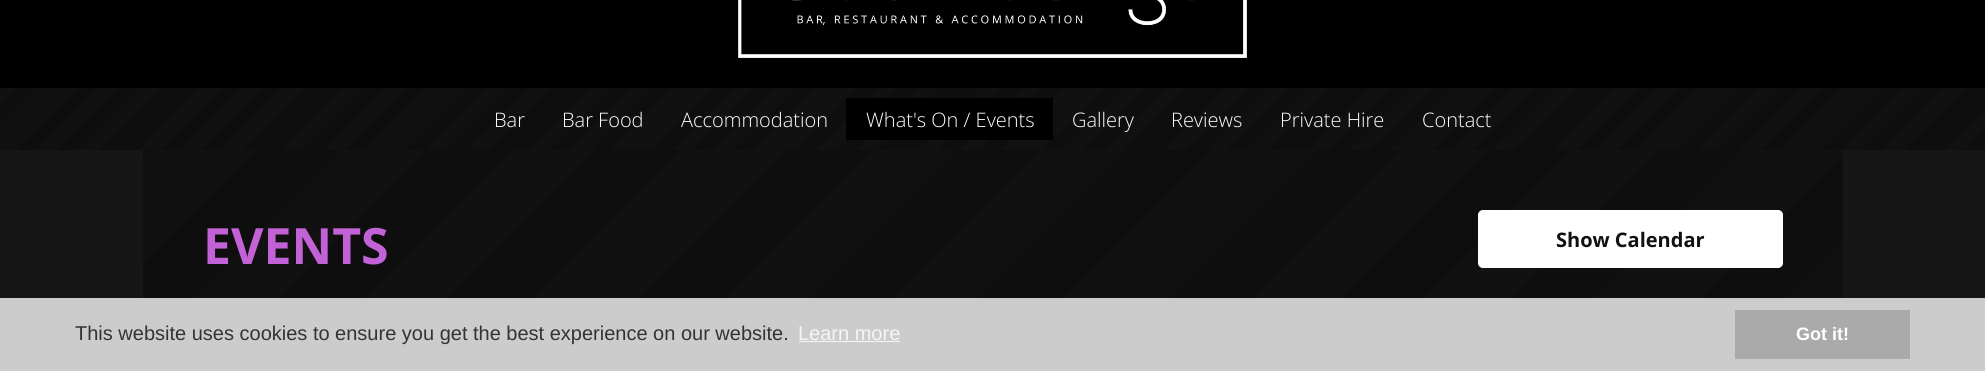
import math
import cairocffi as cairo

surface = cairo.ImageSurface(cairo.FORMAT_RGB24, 1985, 371)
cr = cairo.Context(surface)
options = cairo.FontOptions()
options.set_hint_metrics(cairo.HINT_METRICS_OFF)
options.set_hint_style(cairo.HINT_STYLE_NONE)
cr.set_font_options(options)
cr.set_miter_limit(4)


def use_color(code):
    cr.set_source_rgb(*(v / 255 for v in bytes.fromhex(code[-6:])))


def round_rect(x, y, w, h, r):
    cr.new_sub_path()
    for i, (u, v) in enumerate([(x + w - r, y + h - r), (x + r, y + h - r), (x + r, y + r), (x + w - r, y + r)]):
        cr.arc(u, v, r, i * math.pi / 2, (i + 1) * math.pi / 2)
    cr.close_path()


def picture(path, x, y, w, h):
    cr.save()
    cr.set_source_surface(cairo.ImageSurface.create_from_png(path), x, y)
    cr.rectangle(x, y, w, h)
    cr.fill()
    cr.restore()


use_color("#161616")
cr.paint()
use_color("#000000")
cr.rectangle(0, 0, 1985, 88)
cr.fill()
picture("img1.png", 738, 0, 509, 58)
gradient = cairo.LinearGradient(1504, 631, 479, -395)
gradient.add_color_stop_rgba(0, 0.055, 0.055, 0.055, 1)
gradient.add_color_stop_rgba(0.01, 0.055, 0.055, 0.055, 1)
gradient.add_color_stop_rgba(0.01, 0.067, 0.067, 0.067, 1)
gradient.add_color_stop_rgba(0.02, 0.067, 0.067, 0.067, 1)
gradient.add_color_stop_rgba(0.02, 0.055, 0.055, 0.055, 1)
gradient.add_color_stop_rgba(0.03, 0.055, 0.055, 0.055, 1)
gradient.add_color_stop_rgba(0.03, 0.067, 0.067, 0.067, 1)
gradient.add_color_stop_rgba(0.03, 0.067, 0.067, 0.067, 1)
gradient.add_color_stop_rgba(0.03, 0.055, 0.055, 0.055, 1)
gradient.add_color_stop_rgba(0.04, 0.055, 0.055, 0.055, 1)
gradient.add_color_stop_rgba(0.04, 0.067, 0.067, 0.067, 1)
gradient.add_color_stop_rgba(0.05, 0.067, 0.067, 0.067, 1)
gradient.add_color_stop_rgba(0.05, 0.055, 0.055, 0.055, 1)
gradient.add_color_stop_rgba(0.06, 0.055, 0.055, 0.055, 1)
gradient.add_color_stop_rgba(0.06, 0.067, 0.067, 0.067, 1)
gradient.add_color_stop_rgba(0.07, 0.067, 0.067, 0.067, 1)
gradient.add_color_stop_rgba(0.07, 0.055, 0.055, 0.055, 1)
gradient.add_color_stop_rgba(0.08, 0.055, 0.055, 0.055, 1)
gradient.add_color_stop_rgba(0.08, 0.067, 0.067, 0.067, 1)
gradient.add_color_stop_rgba(0.09, 0.067, 0.067, 0.067, 1)
gradient.add_color_stop_rgba(0.09, 0.055, 0.055, 0.055, 1)
gradient.add_color_stop_rgba(0.09, 0.055, 0.055, 0.055, 1)
gradient.add_color_stop_rgba(0.09, 0.067, 0.067, 0.067, 1)
gradient.add_color_stop_rgba(0.1, 0.067, 0.067, 0.067, 1)
gradient.add_color_stop_rgba(0.1, 0.055, 0.055, 0.055, 1)
gradient.add_color_stop_rgba(0.11, 0.055, 0.055, 0.055, 1)
gradient.add_color_stop_rgba(0.11, 0.067, 0.067, 0.067, 1)
gradient.add_color_stop_rgba(0.12, 0.067, 0.067, 0.067, 1)
gradient.add_color_stop_rgba(0.12, 0.055, 0.055, 0.055, 1)
gradient.add_color_stop_rgba(0.13, 0.055, 0.055, 0.055, 1)
gradient.add_color_stop_rgba(0.13, 0.067, 0.067, 0.067, 1)
gradient.add_color_stop_rgba(0.14, 0.067, 0.067, 0.067, 1)
gradient.add_color_stop_rgba(0.14, 0.055, 0.055, 0.055, 1)
gradient.add_color_stop_rgba(0.15, 0.055, 0.055, 0.055, 1)
gradient.add_color_stop_rgba(0.15, 0.067, 0.067, 0.067, 1)
gradient.add_color_stop_rgba(0.16, 0.067, 0.067, 0.067, 1)
gradient.add_color_stop_rgba(0.16, 0.055, 0.055, 0.055, 1)
gradient.add_color_stop_rgba(0.16, 0.055, 0.055, 0.055, 1)
gradient.add_color_stop_rgba(0.16, 0.067, 0.067, 0.067, 1)
gradient.add_color_stop_rgba(0.17, 0.067, 0.067, 0.067, 1)
gradient.add_color_stop_rgba(0.17, 0.055, 0.055, 0.055, 1)
gradient.add_color_stop_rgba(0.18, 0.055, 0.055, 0.055, 1)
gradient.add_color_stop_rgba(0.18, 0.067, 0.067, 0.067, 1)
gradient.add_color_stop_rgba(0.19, 0.067, 0.067, 0.067, 1)
gradient.add_color_stop_rgba(0.19, 0.055, 0.055, 0.055, 1)
gradient.add_color_stop_rgba(0.2, 0.055, 0.055, 0.055, 1)
gradient.add_color_stop_rgba(0.2, 0.067, 0.067, 0.067, 1)
gradient.add_color_stop_rgba(0.21, 0.067, 0.067, 0.067, 1)
gradient.add_color_stop_rgba(0.21, 0.055, 0.055, 0.055, 1)
gradient.add_color_stop_rgba(0.22, 0.055, 0.055, 0.055, 1)
gradient.add_color_stop_rgba(0.22, 0.067, 0.067, 0.067, 1)
gradient.add_color_stop_rgba(0.22, 0.067, 0.067, 0.067, 1)
gradient.add_color_stop_rgba(0.22, 0.055, 0.055, 0.055, 1)
gradient.add_color_stop_rgba(0.23, 0.055, 0.055, 0.055, 1)
gradient.add_color_stop_rgba(0.23, 0.067, 0.067, 0.067, 1)
gradient.add_color_stop_rgba(0.24, 0.067, 0.067, 0.067, 1)
gradient.add_color_stop_rgba(0.24, 0.055, 0.055, 0.055, 1)
gradient.add_color_stop_rgba(0.25, 0.055, 0.055, 0.055, 1)
gradient.add_color_stop_rgba(0.25, 0.067, 0.067, 0.067, 1)
gradient.add_color_stop_rgba(0.26, 0.067, 0.067, 0.067, 1)
gradient.add_color_stop_rgba(0.26, 0.055, 0.055, 0.055, 1)
gradient.add_color_stop_rgba(0.27, 0.055, 0.055, 0.055, 1)
gradient.add_color_stop_rgba(0.27, 0.067, 0.067, 0.067, 1)
gradient.add_color_stop_rgba(0.28, 0.067, 0.067, 0.067, 1)
gradient.add_color_stop_rgba(0.28, 0.055, 0.055, 0.055, 1)
gradient.add_color_stop_rgba(0.28, 0.055, 0.055, 0.055, 1)
gradient.add_color_stop_rgba(0.28, 0.067, 0.067, 0.067, 1)
gradient.add_color_stop_rgba(0.29, 0.067, 0.067, 0.067, 1)
gradient.add_color_stop_rgba(0.29, 0.055, 0.055, 0.055, 1)
gradient.add_color_stop_rgba(0.3, 0.055, 0.055, 0.055, 1)
gradient.add_color_stop_rgba(0.3, 0.067, 0.067, 0.067, 1)
gradient.add_color_stop_rgba(0.31, 0.067, 0.067, 0.067, 1)
gradient.add_color_stop_rgba(0.31, 0.055, 0.055, 0.055, 1)
gradient.add_color_stop_rgba(0.32, 0.055, 0.055, 0.055, 1)
gradient.add_color_stop_rgba(0.32, 0.067, 0.067, 0.067, 1)
gradient.add_color_stop_rgba(0.33, 0.067, 0.067, 0.067, 1)
gradient.add_color_stop_rgba(0.33, 0.055, 0.055, 0.055, 1)
gradient.add_color_stop_rgba(0.34, 0.055, 0.055, 0.055, 1)
gradient.add_color_stop_rgba(0.34, 0.067, 0.067, 0.067, 1)
gradient.add_color_stop_rgba(0.34, 0.067, 0.067, 0.067, 1)
gradient.add_color_stop_rgba(0.34, 0.055, 0.055, 0.055, 1)
gradient.add_color_stop_rgba(0.35, 0.055, 0.055, 0.055, 1)
gradient.add_color_stop_rgba(0.35, 0.067, 0.067, 0.067, 1)
gradient.add_color_stop_rgba(0.36, 0.067, 0.067, 0.067, 1)
gradient.add_color_stop_rgba(0.36, 0.055, 0.055, 0.055, 1)
gradient.add_color_stop_rgba(0.37, 0.055, 0.055, 0.055, 1)
gradient.add_color_stop_rgba(0.37, 0.067, 0.067, 0.067, 1)
gradient.add_color_stop_rgba(0.38, 0.067, 0.067, 0.067, 1)
gradient.add_color_stop_rgba(0.38, 0.055, 0.055, 0.055, 1)
gradient.add_color_stop_rgba(0.39, 0.055, 0.055, 0.055, 1)
gradient.add_color_stop_rgba(0.39, 0.067, 0.067, 0.067, 1)
gradient.add_color_stop_rgba(0.4, 0.067, 0.067, 0.067, 1)
gradient.add_color_stop_rgba(0.4, 0.055, 0.055, 0.055, 1)
gradient.add_color_stop_rgba(0.41, 0.055, 0.055, 0.055, 1)
gradient.add_color_stop_rgba(0.41, 0.067, 0.067, 0.067, 1)
gradient.add_color_stop_rgba(0.41, 0.067, 0.067, 0.067, 1)
gradient.add_color_stop_rgba(0.41, 0.055, 0.055, 0.055, 1)
gradient.add_color_stop_rgba(0.42, 0.055, 0.055, 0.055, 1)
gradient.add_color_stop_rgba(0.42, 0.067, 0.067, 0.067, 1)
gradient.add_color_stop_rgba(0.43, 0.067, 0.067, 0.067, 1)
gradient.add_color_stop_rgba(0.43, 0.055, 0.055, 0.055, 1)
gradient.add_color_stop_rgba(0.44, 0.055, 0.055, 0.055, 1)
gradient.add_color_stop_rgba(0.44, 0.067, 0.067, 0.067, 1)
gradient.add_color_stop_rgba(0.45, 0.067, 0.067, 0.067, 1)
gradient.add_color_stop_rgba(0.45, 0.055, 0.055, 0.055, 1)
gradient.add_color_stop_rgba(0.46, 0.055, 0.055, 0.055, 1)
gradient.add_color_stop_rgba(0.46, 0.067, 0.067, 0.067, 1)
gradient.add_color_stop_rgba(0.47, 0.067, 0.067, 0.067, 1)
gradient.add_color_stop_rgba(0.47, 0.055, 0.055, 0.055, 1)
gradient.add_color_stop_rgba(0.47, 0.055, 0.055, 0.055, 1)
gradient.add_color_stop_rgba(0.47, 0.067, 0.067, 0.067, 1)
gradient.add_color_stop_rgba(0.48, 0.067, 0.067, 0.067, 1)
gradient.add_color_stop_rgba(0.48, 0.055, 0.055, 0.055, 1)
gradient.add_color_stop_rgba(0.49, 0.055, 0.055, 0.055, 1)
gradient.add_color_stop_rgba(0.49, 0.067, 0.067, 0.067, 1)
gradient.add_color_stop_rgba(0.5, 0.067, 0.067, 0.067, 1)
gradient.add_color_stop_rgba(0.5, 0.055, 0.055, 0.055, 1)
gradient.add_color_stop_rgba(0.51, 0.055, 0.055, 0.055, 1)
gradient.add_color_stop_rgba(0.51, 0.067, 0.067, 0.067, 1)
gradient.add_color_stop_rgba(0.52, 0.067, 0.067, 0.067, 1)
gradient.add_color_stop_rgba(0.52, 0.055, 0.055, 0.055, 1)
gradient.add_color_stop_rgba(0.53, 0.055, 0.055, 0.055, 1)
gradient.add_color_stop_rgba(0.53, 0.067, 0.067, 0.067, 1)
gradient.add_color_stop_rgba(0.53, 0.067, 0.067, 0.067, 1)
gradient.add_color_stop_rgba(0.53, 0.055, 0.055, 0.055, 1)
gradient.add_color_stop_rgba(0.54, 0.055, 0.055, 0.055, 1)
gradient.add_color_stop_rgba(0.54, 0.067, 0.067, 0.067, 1)
gradient.add_color_stop_rgba(0.55, 0.067, 0.067, 0.067, 1)
gradient.add_color_stop_rgba(0.55, 0.055, 0.055, 0.055, 1)
gradient.add_color_stop_rgba(0.56, 0.055, 0.055, 0.055, 1)
gradient.add_color_stop_rgba(0.56, 0.067, 0.067, 0.067, 1)
gradient.add_color_stop_rgba(0.57, 0.067, 0.067, 0.067, 1)
gradient.add_color_stop_rgba(0.57, 0.055, 0.055, 0.055, 1)
gradient.add_color_stop_rgba(0.58, 0.055, 0.055, 0.055, 1)
gradient.add_color_stop_rgba(0.58, 0.067, 0.067, 0.067, 1)
gradient.add_color_stop_rgba(0.59, 0.067, 0.067, 0.067, 1)
gradient.add_color_stop_rgba(0.59, 0.055, 0.055, 0.055, 1)
gradient.add_color_stop_rgba(0.59, 0.055, 0.055, 0.055, 1)
gradient.add_color_stop_rgba(0.59, 0.067, 0.067, 0.067, 1)
gradient.add_color_stop_rgba(0.6, 0.067, 0.067, 0.067, 1)
gradient.add_color_stop_rgba(0.6, 0.055, 0.055, 0.055, 1)
gradient.add_color_stop_rgba(0.61, 0.055, 0.055, 0.055, 1)
gradient.add_color_stop_rgba(0.61, 0.067, 0.067, 0.067, 1)
gradient.add_color_stop_rgba(0.62, 0.067, 0.067, 0.067, 1)
gradient.add_color_stop_rgba(0.62, 0.055, 0.055, 0.055, 1)
gradient.add_color_stop_rgba(0.63, 0.055, 0.055, 0.055, 1)
gradient.add_color_stop_rgba(0.63, 0.067, 0.067, 0.067, 1)
gradient.add_color_stop_rgba(0.64, 0.067, 0.067, 0.067, 1)
gradient.add_color_stop_rgba(0.64, 0.055, 0.055, 0.055, 1)
gradient.add_color_stop_rgba(0.65, 0.055, 0.055, 0.055, 1)
gradient.add_color_stop_rgba(0.65, 0.067, 0.067, 0.067, 1)
gradient.add_color_stop_rgba(0.66, 0.067, 0.067, 0.067, 1)
gradient.add_color_stop_rgba(0.66, 0.055, 0.055, 0.055, 1)
gradient.add_color_stop_rgba(0.66, 0.055, 0.055, 0.055, 1)
gradient.add_color_stop_rgba(0.66, 0.067, 0.067, 0.067, 1)
gradient.add_color_stop_rgba(0.67, 0.067, 0.067, 0.067, 1)
gradient.add_color_stop_rgba(0.67, 0.055, 0.055, 0.055, 1)
gradient.add_color_stop_rgba(0.68, 0.055, 0.055, 0.055, 1)
gradient.add_color_stop_rgba(0.68, 0.067, 0.067, 0.067, 1)
gradient.add_color_stop_rgba(0.69, 0.067, 0.067, 0.067, 1)
gradient.add_color_stop_rgba(0.69, 0.055, 0.055, 0.055, 1)
gradient.add_color_stop_rgba(0.7, 0.055, 0.055, 0.055, 1)
gradient.add_color_stop_rgba(0.7, 0.067, 0.067, 0.067, 1)
gradient.add_color_stop_rgba(0.71, 0.067, 0.067, 0.067, 1)
gradient.add_color_stop_rgba(0.71, 0.055, 0.055, 0.055, 1)
gradient.add_color_stop_rgba(0.72, 0.055, 0.055, 0.055, 1)
gradient.add_color_stop_rgba(0.72, 0.067, 0.067, 0.067, 1)
gradient.add_color_stop_rgba(0.72, 0.067, 0.067, 0.067, 1)
gradient.add_color_stop_rgba(0.72, 0.055, 0.055, 0.055, 1)
gradient.add_color_stop_rgba(0.73, 0.055, 0.055, 0.055, 1)
gradient.add_color_stop_rgba(0.73, 0.067, 0.067, 0.067, 1)
gradient.add_color_stop_rgba(0.74, 0.067, 0.067, 0.067, 1)
gradient.add_color_stop_rgba(0.74, 0.055, 0.055, 0.055, 1)
gradient.add_color_stop_rgba(0.75, 0.055, 0.055, 0.055, 1)
gradient.add_color_stop_rgba(0.75, 0.067, 0.067, 0.067, 1)
gradient.add_color_stop_rgba(0.76, 0.067, 0.067, 0.067, 1)
gradient.add_color_stop_rgba(0.76, 0.055, 0.055, 0.055, 1)
gradient.add_color_stop_rgba(0.77, 0.055, 0.055, 0.055, 1)
gradient.add_color_stop_rgba(0.77, 0.067, 0.067, 0.067, 1)
gradient.add_color_stop_rgba(0.78, 0.067, 0.067, 0.067, 1)
gradient.add_color_stop_rgba(0.78, 0.055, 0.055, 0.055, 1)
gradient.add_color_stop_rgba(0.78, 0.055, 0.055, 0.055, 1)
gradient.add_color_stop_rgba(0.78, 0.067, 0.067, 0.067, 1)
gradient.add_color_stop_rgba(0.79, 0.067, 0.067, 0.067, 1)
gradient.add_color_stop_rgba(0.79, 0.055, 0.055, 0.055, 1)
gradient.add_color_stop_rgba(0.8, 0.055, 0.055, 0.055, 1)
gradient.add_color_stop_rgba(0.8, 0.067, 0.067, 0.067, 1)
gradient.add_color_stop_rgba(0.81, 0.067, 0.067, 0.067, 1)
gradient.add_color_stop_rgba(0.81, 0.055, 0.055, 0.055, 1)
gradient.add_color_stop_rgba(0.82, 0.055, 0.055, 0.055, 1)
gradient.add_color_stop_rgba(0.82, 0.067, 0.067, 0.067, 1)
gradient.add_color_stop_rgba(0.83, 0.067, 0.067, 0.067, 1)
gradient.add_color_stop_rgba(0.83, 0.055, 0.055, 0.055, 1)
gradient.add_color_stop_rgba(0.84, 0.055, 0.055, 0.055, 1)
gradient.add_color_stop_rgba(0.84, 0.067, 0.067, 0.067, 1)
gradient.add_color_stop_rgba(0.84, 0.067, 0.067, 0.067, 1)
gradient.add_color_stop_rgba(0.84, 0.055, 0.055, 0.055, 1)
gradient.add_color_stop_rgba(0.85, 0.055, 0.055, 0.055, 1)
gradient.add_color_stop_rgba(0.85, 0.067, 0.067, 0.067, 1)
gradient.add_color_stop_rgba(0.86, 0.067, 0.067, 0.067, 1)
gradient.add_color_stop_rgba(0.86, 0.055, 0.055, 0.055, 1)
gradient.add_color_stop_rgba(0.87, 0.055, 0.055, 0.055, 1)
gradient.add_color_stop_rgba(0.87, 0.067, 0.067, 0.067, 1)
gradient.add_color_stop_rgba(0.88, 0.067, 0.067, 0.067, 1)
gradient.add_color_stop_rgba(0.88, 0.055, 0.055, 0.055, 1)
gradient.add_color_stop_rgba(0.89, 0.055, 0.055, 0.055, 1)
gradient.add_color_stop_rgba(0.89, 0.067, 0.067, 0.067, 1)
gradient.add_color_stop_rgba(0.9, 0.067, 0.067, 0.067, 1)
gradient.add_color_stop_rgba(0.9, 0.055, 0.055, 0.055, 1)
gradient.add_color_stop_rgba(0.91, 0.055, 0.055, 0.055, 1)
gradient.add_color_stop_rgba(0.91, 0.067, 0.067, 0.067, 1)
gradient.add_color_stop_rgba(0.91, 0.067, 0.067, 0.067, 1)
gradient.add_color_stop_rgba(0.91, 0.055, 0.055, 0.055, 1)
gradient.add_color_stop_rgba(0.92, 0.055, 0.055, 0.055, 1)
gradient.add_color_stop_rgba(0.92, 0.067, 0.067, 0.067, 1)
gradient.add_color_stop_rgba(0.93, 0.067, 0.067, 0.067, 1)
gradient.add_color_stop_rgba(0.93, 0.055, 0.055, 0.055, 1)
gradient.add_color_stop_rgba(0.94, 0.055, 0.055, 0.055, 1)
gradient.add_color_stop_rgba(0.94, 0.067, 0.067, 0.067, 1)
gradient.add_color_stop_rgba(0.95, 0.067, 0.067, 0.067, 1)
gradient.add_color_stop_rgba(0.95, 0.055, 0.055, 0.055, 1)
gradient.add_color_stop_rgba(0.96, 0.055, 0.055, 0.055, 1)
gradient.add_color_stop_rgba(0.96, 0.067, 0.067, 0.067, 1)
gradient.add_color_stop_rgba(0.97, 0.067, 0.067, 0.067, 1)
gradient.add_color_stop_rgba(0.97, 0.055, 0.055, 0.055, 1)
gradient.add_color_stop_rgba(0.97, 0.055, 0.055, 0.055, 1)
gradient.add_color_stop_rgba(0.97, 0.067, 0.067, 0.067, 1)
gradient.add_color_stop_rgba(0.98, 0.067, 0.067, 0.067, 1)
gradient.add_color_stop_rgba(0.98, 0.055, 0.055, 0.055, 1)
gradient.add_color_stop_rgba(0.99, 0.055, 0.055, 0.055, 1)
gradient.add_color_stop_rgba(0.99, 0.067, 0.067, 0.067, 1)
gradient.add_color_stop_rgba(1, 0.067, 0.067, 0.067, 1)
cr.set_source(gradient)
cr.rectangle(0, 88, 1985, 62)
cr.fill()
cr.select_font_face("Open Sans Light")
cr.set_font_size(20)
use_color("#ffffff")
cr.move_to(494, 127)
cr.show_text("Bar")
cr.move_to(562, 127)
cr.show_text("Bar Food")
cr.move_to(681, 127)
cr.show_text("Accommodation")
use_color("#000000")
cr.rectangle(846, 98, 207, 42)
cr.fill()
use_color("#ffffff")
cr.move_to(866, 127)
cr.show_text("What's On / Events")
cr.move_to(1072, 127)
cr.show_text("Gallery")
cr.move_to(1171, 127)
cr.show_text("Reviews")
cr.move_to(1280, 127)
cr.show_text("Private Hire")
cr.move_to(1422, 127)
cr.show_text("Contact")
gradient = cairo.LinearGradient(1483, 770, 422, -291)
gradient.add_color_stop_rgba(0, 0.055, 0.055, 0.055, 1)
gradient.add_color_stop_rgba(0.04, 0.055, 0.055, 0.055, 1)
gradient.add_color_stop_rgba(0.04, 0.067, 0.067, 0.067, 1)
gradient.add_color_stop_rgba(0.08, 0.067, 0.067, 0.067, 1)
gradient.add_color_stop_rgba(0.08, 0.055, 0.055, 0.055, 1)
gradient.add_color_stop_rgba(0.12, 0.055, 0.055, 0.055, 1)
gradient.add_color_stop_rgba(0.12, 0.067, 0.067, 0.067, 1)
gradient.add_color_stop_rgba(0.17, 0.067, 0.067, 0.067, 1)
gradient.add_color_stop_rgba(0.17, 0.055, 0.055, 0.055, 1)
gradient.add_color_stop_rgba(0.21, 0.055, 0.055, 0.055, 1)
gradient.add_color_stop_rgba(0.21, 0.067, 0.067, 0.067, 1)
gradient.add_color_stop_rgba(0.25, 0.067, 0.067, 0.067, 1)
gradient.add_color_stop_rgba(0.25, 0.055, 0.055, 0.055, 1)
gradient.add_color_stop_rgba(0.29, 0.055, 0.055, 0.055, 1)
gradient.add_color_stop_rgba(0.29, 0.067, 0.067, 0.067, 1)
gradient.add_color_stop_rgba(0.33, 0.067, 0.067, 0.067, 1)
gradient.add_color_stop_rgba(0.33, 0.055, 0.055, 0.055, 1)
gradient.add_color_stop_rgba(0.37, 0.055, 0.055, 0.055, 1)
gradient.add_color_stop_rgba(0.37, 0.067, 0.067, 0.067, 1)
gradient.add_color_stop_rgba(0.42, 0.067, 0.067, 0.067, 1)
gradient.add_color_stop_rgba(0.42, 0.055, 0.055, 0.055, 1)
gradient.add_color_stop_rgba(0.46, 0.055, 0.055, 0.055, 1)
gradient.add_color_stop_rgba(0.46, 0.067, 0.067, 0.067, 1)
gradient.add_color_stop_rgba(0.5, 0.067, 0.067, 0.067, 1)
gradient.add_color_stop_rgba(0.5, 0.055, 0.055, 0.055, 1)
gradient.add_color_stop_rgba(0.54, 0.055, 0.055, 0.055, 1)
gradient.add_color_stop_rgba(0.54, 0.067, 0.067, 0.067, 1)
gradient.add_color_stop_rgba(0.58, 0.067, 0.067, 0.067, 1)
gradient.add_color_stop_rgba(0.58, 0.055, 0.055, 0.055, 1)
gradient.add_color_stop_rgba(0.62, 0.055, 0.055, 0.055, 1)
gradient.add_color_stop_rgba(0.62, 0.067, 0.067, 0.067, 1)
gradient.add_color_stop_rgba(0.67, 0.067, 0.067, 0.067, 1)
gradient.add_color_stop_rgba(0.67, 0.055, 0.055, 0.055, 1)
gradient.add_color_stop_rgba(0.71, 0.055, 0.055, 0.055, 1)
gradient.add_color_stop_rgba(0.71, 0.067, 0.067, 0.067, 1)
gradient.add_color_stop_rgba(0.75, 0.067, 0.067, 0.067, 1)
gradient.add_color_stop_rgba(0.75, 0.055, 0.055, 0.055, 1)
gradient.add_color_stop_rgba(0.79, 0.055, 0.055, 0.055, 1)
gradient.add_color_stop_rgba(0.79, 0.067, 0.067, 0.067, 1)
gradient.add_color_stop_rgba(0.83, 0.067, 0.067, 0.067, 1)
gradient.add_color_stop_rgba(0.83, 0.055, 0.055, 0.055, 1)
gradient.add_color_stop_rgba(0.87, 0.055, 0.055, 0.055, 1)
gradient.add_color_stop_rgba(0.87, 0.067, 0.067, 0.067, 1)
gradient.add_color_stop_rgba(0.92, 0.067, 0.067, 0.067, 1)
gradient.add_color_stop_rgba(0.92, 0.055, 0.055, 0.055, 1)
gradient.add_color_stop_rgba(0.96, 0.055, 0.055, 0.055, 1)
gradient.add_color_stop_rgba(0.96, 0.067, 0.067, 0.067, 1)
gradient.add_color_stop_rgba(1, 0.067, 0.067, 0.067, 1)
cr.set_source(gradient)
cr.rectangle(143, 150, 1700, 148)
cr.fill()
cr.select_font_face("Open Sans", cairo.FONT_SLANT_NORMAL, cairo.FONT_WEIGHT_BOLD)
cr.set_font_size(50)
use_color("#c262d6")
cr.move_to(203, 264)
cr.show_text("EVENTS")
use_color("#ffffff")
round_rect(1478.5, 210.5, 304, 57, 4.5)
cr.fill_preserve()
cr.set_line_width(1)
cr.stroke()
cr.set_font_size(20)
use_color("#111111")
cr.move_to(1556, 247)
cr.show_text("Show Calendar")
use_color("#cccccc")
cr.rectangle(0, 298, 1985, 73)
cr.fill()
cr.select_font_face("Liberation Sans")
use_color("#333333")
cr.move_to(75, 340)
cr.show_text("This website uses cookies to ensure you get the best experience on our website.")
use_color("#f5f5f5")
cr.move_to(798, 340)
cr.show_text("Learn more")
cr.rectangle(799, 341, 101, 1)
cr.fill()
use_color("#aaaaaa")
cr.rectangle(1735, 310, 175, 49)
cr.fill()
cr.select_font_face("Liberation Sans", cairo.FONT_SLANT_NORMAL, cairo.FONT_WEIGHT_BOLD)
cr.set_font_size(18)
use_color("#ffffff")
cr.move_to(1796, 340)
cr.show_text("Got it!")
surface.write_to_png("result.png")
